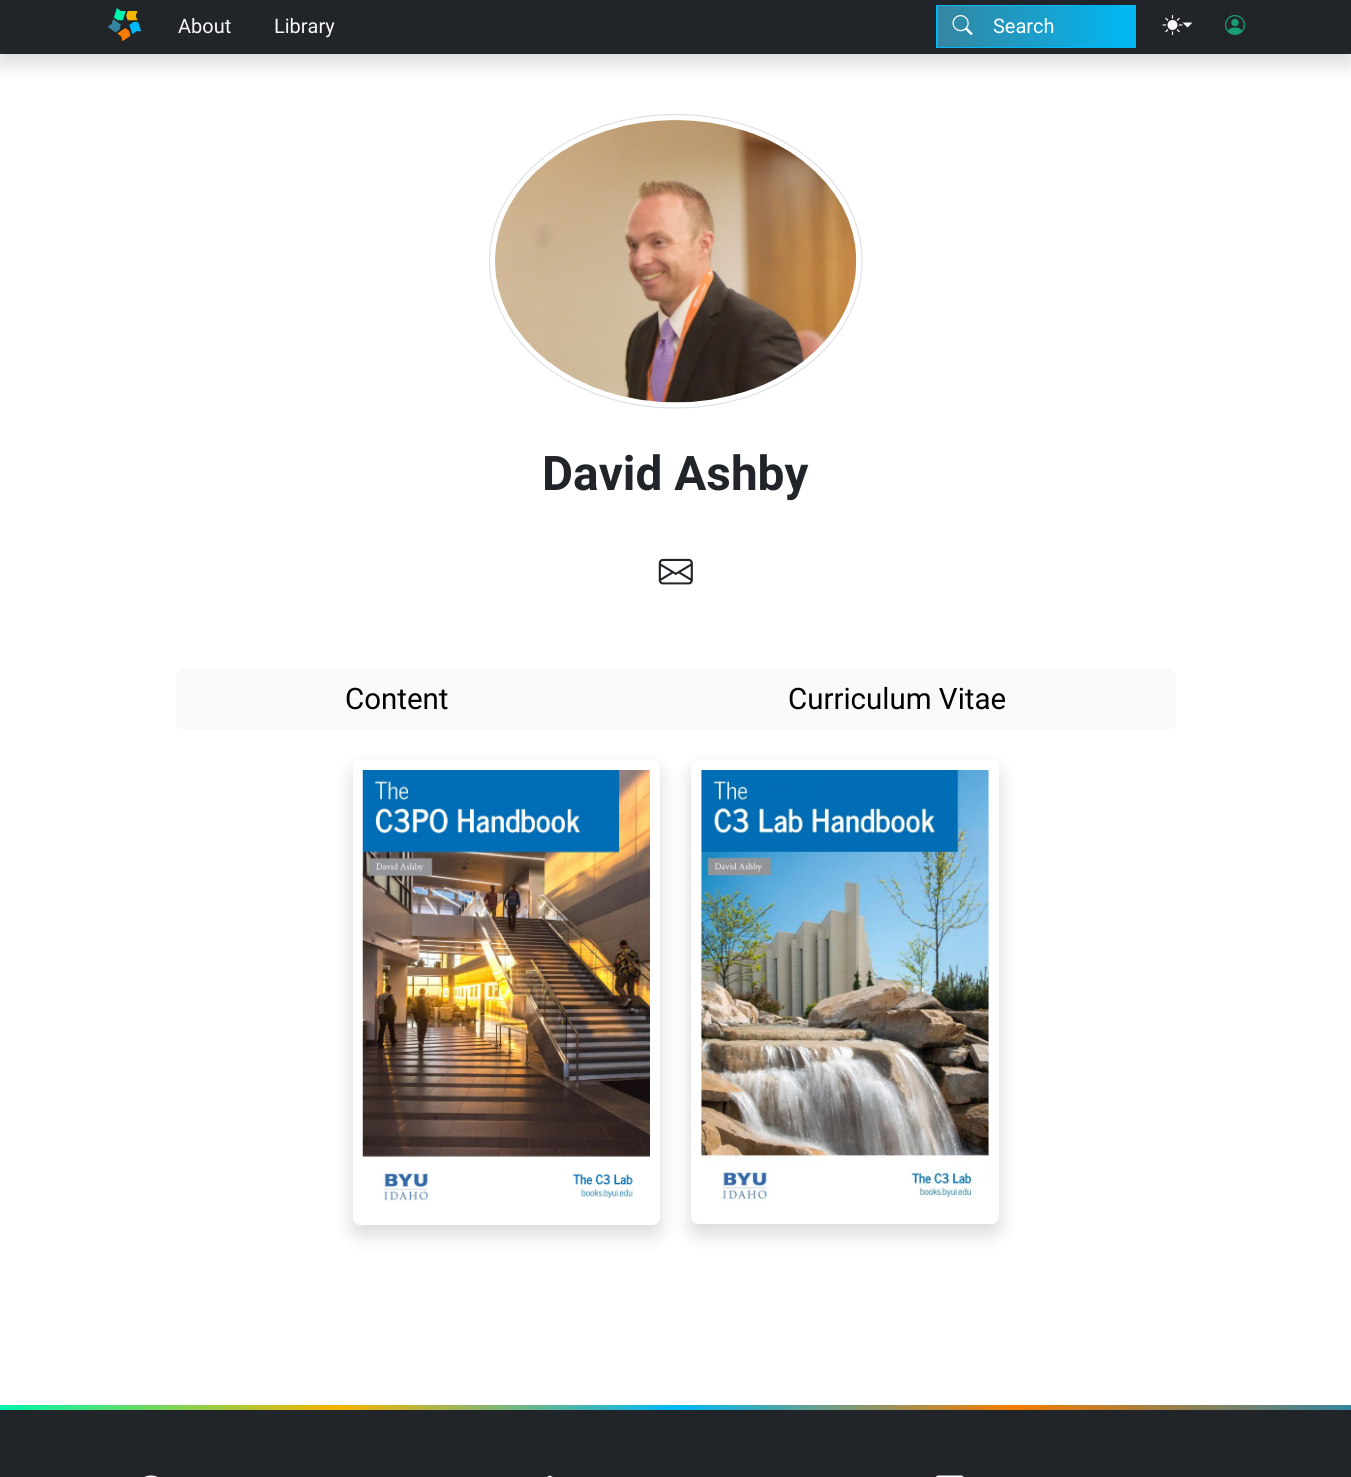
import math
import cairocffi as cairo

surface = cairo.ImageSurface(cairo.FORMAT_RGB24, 1351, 1477)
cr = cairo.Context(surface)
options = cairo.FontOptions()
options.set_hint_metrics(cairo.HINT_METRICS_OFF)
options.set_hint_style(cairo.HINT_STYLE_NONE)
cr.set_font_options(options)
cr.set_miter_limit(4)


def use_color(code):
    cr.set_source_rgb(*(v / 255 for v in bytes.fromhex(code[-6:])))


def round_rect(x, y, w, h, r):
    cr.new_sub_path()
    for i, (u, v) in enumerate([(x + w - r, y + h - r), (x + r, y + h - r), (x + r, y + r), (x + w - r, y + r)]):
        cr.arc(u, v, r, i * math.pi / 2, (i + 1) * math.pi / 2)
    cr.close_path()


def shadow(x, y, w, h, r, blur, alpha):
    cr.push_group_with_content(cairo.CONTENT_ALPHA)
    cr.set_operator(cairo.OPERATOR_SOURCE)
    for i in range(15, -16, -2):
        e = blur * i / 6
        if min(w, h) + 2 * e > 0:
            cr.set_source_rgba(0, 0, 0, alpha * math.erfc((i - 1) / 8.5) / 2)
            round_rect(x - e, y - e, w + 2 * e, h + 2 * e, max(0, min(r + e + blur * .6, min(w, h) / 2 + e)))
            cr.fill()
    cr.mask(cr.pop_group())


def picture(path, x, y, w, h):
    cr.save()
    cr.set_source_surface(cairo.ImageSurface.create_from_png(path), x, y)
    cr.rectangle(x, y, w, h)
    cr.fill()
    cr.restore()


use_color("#ffffff")
cr.paint()
use_color("#000000")
shadow(0, 10, 1351, 54, 0, 10, 0.15)
use_color("#212529")
cr.rectangle(0, 0, 1351, 54)
cr.fill()
picture("img1.png", 108, 8, 33, 33)
cr.select_font_face("Roboto")
cr.set_font_size(20)
use_color("#f8f9fa")
cr.move_to(178, 33)
cr.show_text("About")
cr.move_to(274, 33)
cr.show_text("Library")
gradient = cairo.LinearGradient(740, 26, 938, 26)
gradient.add_color_stop_rgba(0, 0.208, 0.522, 0.627, 1)
gradient.add_color_stop_rgba(1, 0, 0.722, 0.961, 1)
cr.set_source(gradient)
cr.rectangle(937, 5, 1, 43)
cr.fill()
gradient = cairo.LinearGradient(938, 26, 1135, 26)
gradient.add_color_stop_rgba(0, 0.208, 0.522, 0.627, 1)
gradient.add_color_stop_rgba(1, 0, 0.722, 0.961, 1)
cr.set_source(gradient)
cr.rectangle(938, 6, 197, 41)
cr.fill()
cr.rectangle(936.5, 5.5, 199, 42)
use_color("#00b8f5")
cr.set_line_width(1)
cr.stroke()
picture("img2.png", 952, 15, 21, 20)
use_color("#ffffff")
cr.move_to(993, 33)
cr.show_text("Search")
picture("img3.png", 1162, 15, 21, 20)
use_color("#f8f9fa")
cr.new_path()
cr.move_to(1182.5, 22.5)
cr.line_to(1192.5, 22.5)
cr.line_to(1187.5, 27.5)
cr.close_path()
cr.fill()
picture("img4.png", 1225, 15, 20, 20)
cr.new_path()
cr.move_to(675.5, 114.5)
cr.curve_to(778.5, 114.5, 862, 180, 862, 261)
cr.curve_to(862, 342.5, 778.5, 408, 675.5, 408)
cr.curve_to(573, 408, 489.5, 342.5, 489.5, 261)
cr.curve_to(489.5, 180, 573, 114.5, 675.5, 114.5)
cr.close_path()
use_color("#dee2e6")
cr.set_line_width(1.2)
cr.stroke()
picture("img5.png", 495, 120, 362, 283)
cr.select_font_face("Roboto", cairo.FONT_SLANT_NORMAL, cairo.FONT_WEIGHT_BOLD)
cr.set_font_size(47.75)
use_color("#212529")
cr.move_to(542, 490)
cr.show_text("David Ashby")
picture("img6.png", 658, 558, 35, 27)
use_color("#f8f9fa")
cr.new_path()
cr.move_to(184, 669)
cr.line_to(619, 669)
cr.line_to(619, 730)
cr.line_to(184, 730)
cr.curve_to(179.5, 730, 176, 726.5, 176, 722)
cr.line_to(176, 677)
cr.curve_to(176, 672.5, 179.5, 669, 184, 669)
cr.close_path()
cr.fill()
cr.select_font_face("Roboto")
cr.set_font_size(29.5)
use_color("#000000")
cr.move_to(345, 709)
cr.show_text("Content")
use_color("#f8f9fa")
cr.new_path()
cr.move_to(619, 669)
cr.line_to(1168, 669)
cr.curve_to(1172.5, 669, 1176, 672.5, 1176, 677)
cr.line_to(1176, 722)
cr.curve_to(1176, 726.5, 1172.5, 730, 1168, 730)
cr.line_to(619, 730)
cr.close_path()
cr.fill()
use_color("#000000")
cr.move_to(788, 709)
cr.show_text("Curriculum Vitae")
cr.save()
cr.set_fill_rule(cairo.FILL_RULE_EVEN_ODD)
cr.new_path()
cr.move_to(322, 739)
cr.line_to(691, 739)
cr.line_to(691, 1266)
cr.line_to(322, 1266)
cr.close_path()
cr.move_to(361, 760)
cr.line_to(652, 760)
cr.curve_to(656.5, 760, 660, 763.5, 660, 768)
cr.line_to(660, 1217)
cr.curve_to(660, 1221.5, 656.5, 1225, 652, 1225)
cr.line_to(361, 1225)
cr.curve_to(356.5, 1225, 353, 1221.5, 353, 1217)
cr.line_to(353, 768)
cr.curve_to(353, 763.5, 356.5, 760, 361, 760)
cr.close_path()
cr.clip()
use_color("#000000")
shadow(353, 770, 307, 465, 8, 10, 0.15)
cr.restore()
picture("img7.png", 362, 770, 288, 432)
cr.save()
cr.set_fill_rule(cairo.FILL_RULE_EVEN_ODD)
cr.new_path()
cr.move_to(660, 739)
cr.line_to(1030, 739)
cr.line_to(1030, 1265)
cr.line_to(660, 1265)
cr.close_path()
cr.move_to(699, 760)
cr.line_to(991, 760)
cr.curve_to(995.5, 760, 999, 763.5, 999, 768)
cr.line_to(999, 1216)
cr.curve_to(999, 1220.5, 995.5, 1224, 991, 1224)
cr.line_to(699, 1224)
cr.curve_to(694.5, 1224, 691, 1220.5, 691, 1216)
cr.line_to(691, 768)
cr.curve_to(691, 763.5, 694.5, 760, 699, 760)
cr.close_path()
cr.clip()
use_color("#000000")
shadow(691, 770, 308, 464, 8, 10, 0.15)
cr.restore()
picture("img8.png", 701, 770, 288, 435)
gradient = cairo.LinearGradient(0, 739, 1351, 739)
gradient.add_color_stop_rgba(0, 0, 0.961, 0.675, 1)
gradient.add_color_stop_rgba(0.25, 0.961, 0.702, 0.008, 1)
gradient.add_color_stop_rgba(0.5, 0, 0.722, 0.961, 1)
gradient.add_color_stop_rgba(0.75, 0.961, 0.486, 0, 1)
gradient.add_color_stop_rgba(1, 0.208, 0.522, 0.627, 1)
cr.set_source(gradient)
cr.rectangle(0, 1405, 1351, 5)
cr.fill()
use_color("#212529")
cr.rectangle(0, 1410, 1351, 67)
cr.fill()
picture("img9.png", 144, 1475, 14, 2)
picture("img10.png", 547, 1475, 6, 2)
picture("img11.png", 935, 1475, 29, 2)
surface.write_to_png("result.png")
